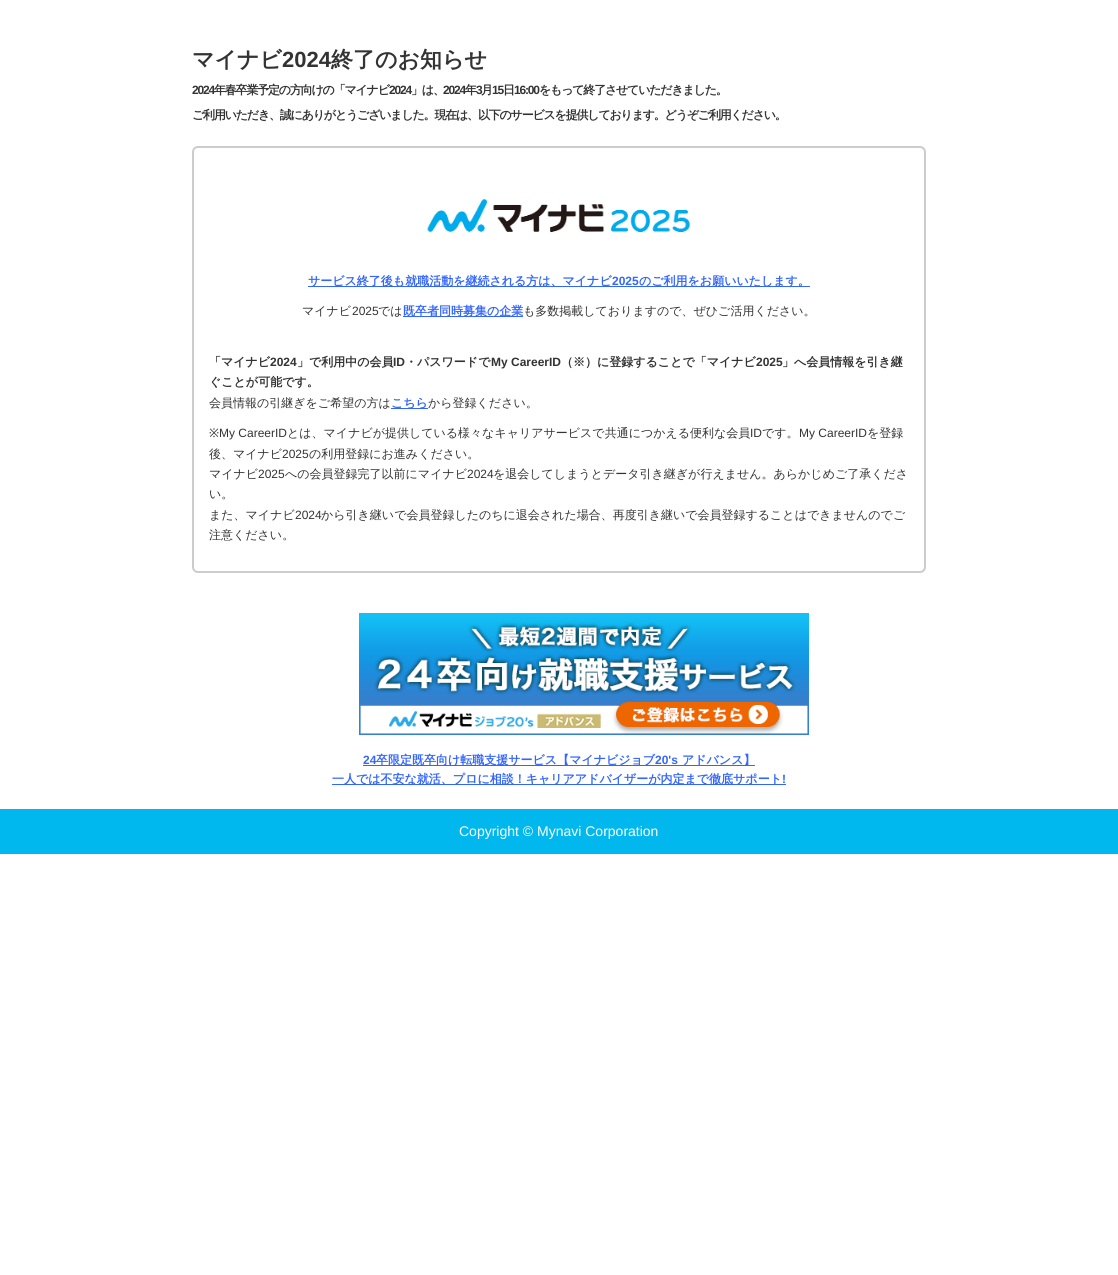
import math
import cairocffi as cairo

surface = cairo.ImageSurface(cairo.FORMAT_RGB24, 1118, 1275)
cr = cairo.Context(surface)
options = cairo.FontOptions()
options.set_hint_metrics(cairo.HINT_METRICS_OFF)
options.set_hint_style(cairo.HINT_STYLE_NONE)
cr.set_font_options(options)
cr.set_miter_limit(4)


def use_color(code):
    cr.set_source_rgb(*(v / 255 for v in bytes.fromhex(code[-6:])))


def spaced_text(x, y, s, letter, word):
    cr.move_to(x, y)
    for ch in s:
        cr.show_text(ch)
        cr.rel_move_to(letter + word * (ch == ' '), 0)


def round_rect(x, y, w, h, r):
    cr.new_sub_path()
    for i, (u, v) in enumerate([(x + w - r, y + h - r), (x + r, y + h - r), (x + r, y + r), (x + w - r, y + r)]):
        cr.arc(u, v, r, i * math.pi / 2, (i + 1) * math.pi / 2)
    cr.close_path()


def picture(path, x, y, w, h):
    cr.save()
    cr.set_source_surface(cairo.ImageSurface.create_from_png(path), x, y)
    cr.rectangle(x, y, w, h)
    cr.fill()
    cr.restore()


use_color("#ffffff")
cr.paint()
cr.select_font_face("WenQuanYi Zen Hei", cairo.FONT_SLANT_NORMAL, cairo.FONT_WEIGHT_BOLD)
cr.set_font_size(22)
use_color("#333333")
cr.move_to(192, 67)
cr.show_text("マイナビ")
cr.select_font_face("Liberation Sans", cairo.FONT_SLANT_NORMAL, cairo.FONT_WEIGHT_BOLD)
cr.move_to(282, 67)
cr.show_text("2024")
cr.select_font_face("WenQuanYi Zen Hei", cairo.FONT_SLANT_NORMAL, cairo.FONT_WEIGHT_BOLD)
cr.move_to(331, 67)
cr.show_text("終了のお知らせ")
cr.select_font_face("Liberation Sans", cairo.FONT_SLANT_NORMAL, cairo.FONT_WEIGHT_BOLD)
cr.set_font_size(12)
spaced_text(192, 94, "2024", -1.2, 0)
cr.select_font_face("WenQuanYi Zen Hei", cairo.FONT_SLANT_NORMAL, cairo.FONT_WEIGHT_BOLD)
spaced_text(214, 94, "年春卒業予定の方向けの「マイナビ", -1.2, 0)
cr.select_font_face("Liberation Sans", cairo.FONT_SLANT_NORMAL, cairo.FONT_WEIGHT_BOLD)
spaced_text(389, 94, "2024", -1.2, 0)
cr.select_font_face("WenQuanYi Zen Hei", cairo.FONT_SLANT_NORMAL, cairo.FONT_WEIGHT_BOLD)
spaced_text(411, 94, "」は、", -1.2, 0)
cr.select_font_face("Liberation Sans", cairo.FONT_SLANT_NORMAL, cairo.FONT_WEIGHT_BOLD)
spaced_text(443, 94, "2024", -1.2, 0)
cr.select_font_face("WenQuanYi Zen Hei", cairo.FONT_SLANT_NORMAL, cairo.FONT_WEIGHT_BOLD)
spaced_text(465, 94, "年", -1.2, 0)
cr.select_font_face("Liberation Sans", cairo.FONT_SLANT_NORMAL, cairo.FONT_WEIGHT_BOLD)
spaced_text(476, 94, "3", -1.2, 0)
cr.select_font_face("WenQuanYi Zen Hei", cairo.FONT_SLANT_NORMAL, cairo.FONT_WEIGHT_BOLD)
spaced_text(481, 94, "月", -1.2, 0)
cr.select_font_face("Liberation Sans", cairo.FONT_SLANT_NORMAL, cairo.FONT_WEIGHT_BOLD)
spaced_text(492, 94, "15", -1.2, 0)
cr.select_font_face("WenQuanYi Zen Hei", cairo.FONT_SLANT_NORMAL, cairo.FONT_WEIGHT_BOLD)
spaced_text(503, 94, "日", -1.2, 0)
cr.select_font_face("Liberation Sans", cairo.FONT_SLANT_NORMAL, cairo.FONT_WEIGHT_BOLD)
spaced_text(514, 94, "16:00", -1.2, 0)
cr.select_font_face("WenQuanYi Zen Hei", cairo.FONT_SLANT_NORMAL, cairo.FONT_WEIGHT_BOLD)
spaced_text(539, 94, "をもって終了させていただきました。", -1.2, 0)
spaced_text(192, 119, "ご利用いただき、誠にありがとうございました。現在は、以下のサービスを提供しております。どうぞご利用ください。", -1.2, 0)
round_rect(193, 147, 732, 425, 5)
use_color("#cccccc")
cr.stroke()
picture("img1.png", 427, 199, 263, 34)
use_color("#3366ff")
cr.rectangle(308, 286, 502, 1)
cr.fill()
cr.move_to(308, 285)
cr.show_text("サービス終了後も就職活動を継続される方は、マイナビ")
cr.select_font_face("Liberation Sans", cairo.FONT_SLANT_NORMAL, cairo.FONT_WEIGHT_BOLD)
cr.move_to(612, 285)
cr.show_text("2025")
cr.select_font_face("WenQuanYi Zen Hei", cairo.FONT_SLANT_NORMAL, cairo.FONT_WEIGHT_BOLD)
cr.move_to(639, 285)
cr.show_text("のご利用をお願いいたします。")
cr.select_font_face("WenQuanYi Zen Hei Medium")
use_color("#333333")
cr.move_to(302, 315)
cr.show_text("マイナビ")
cr.select_font_face("Liberation Sans")
cr.move_to(352, 315)
cr.show_text("2025")
cr.select_font_face("WenQuanYi Zen Hei Medium")
cr.move_to(378, 315)
cr.show_text("では")
use_color("#3366ff")
cr.rectangle(403, 316, 120, 1)
cr.fill()
cr.select_font_face("WenQuanYi Zen Hei", cairo.FONT_SLANT_NORMAL, cairo.FONT_WEIGHT_BOLD)
cr.move_to(403, 315)
cr.show_text("既卒者同時募集の企業")
cr.select_font_face("WenQuanYi Zen Hei Medium")
use_color("#333333")
cr.move_to(523, 315)
cr.show_text("も多数掲載しておりますので、ぜひご活用ください。")
cr.select_font_face("WenQuanYi Zen Hei", cairo.FONT_SLANT_NORMAL, cairo.FONT_WEIGHT_BOLD)
cr.move_to(209, 366)
cr.show_text("「マイナビ")
cr.select_font_face("Liberation Sans", cairo.FONT_SLANT_NORMAL, cairo.FONT_WEIGHT_BOLD)
cr.move_to(270, 366)
cr.show_text("2024")
cr.select_font_face("WenQuanYi Zen Hei", cairo.FONT_SLANT_NORMAL, cairo.FONT_WEIGHT_BOLD)
cr.move_to(297, 366)
cr.show_text("」で利用中の会員")
cr.select_font_face("Liberation Sans", cairo.FONT_SLANT_NORMAL, cairo.FONT_WEIGHT_BOLD)
cr.move_to(393, 366)
cr.show_text("ID")
cr.select_font_face("WenQuanYi Zen Hei", cairo.FONT_SLANT_NORMAL, cairo.FONT_WEIGHT_BOLD)
cr.move_to(405, 366)
cr.show_text("・パスワードで")
cr.select_font_face("Liberation Sans", cairo.FONT_SLANT_NORMAL, cairo.FONT_WEIGHT_BOLD)
cr.move_to(491, 366)
cr.show_text("My CareerID")
cr.select_font_face("WenQuanYi Zen Hei", cairo.FONT_SLANT_NORMAL, cairo.FONT_WEIGHT_BOLD)
cr.move_to(561, 366)
cr.show_text("（※）に登録することで「マイナビ")
cr.select_font_face("Liberation Sans", cairo.FONT_SLANT_NORMAL, cairo.FONT_WEIGHT_BOLD)
cr.move_to(756, 366)
cr.show_text("2025")
cr.select_font_face("WenQuanYi Zen Hei", cairo.FONT_SLANT_NORMAL, cairo.FONT_WEIGHT_BOLD)
cr.move_to(782, 366)
cr.show_text("」へ会員情報を引き継")
cr.move_to(209, 386)
cr.show_text("ぐことが可能です。")
cr.select_font_face("WenQuanYi Zen Hei Medium")
cr.move_to(209, 407)
cr.show_text("会員情報の引継ぎをご希望の方は")
use_color("#3366ff")
cr.rectangle(391, 408, 37, 1)
cr.fill()
cr.select_font_face("WenQuanYi Zen Hei", cairo.FONT_SLANT_NORMAL, cairo.FONT_WEIGHT_BOLD)
cr.move_to(391, 407)
cr.show_text("こちら")
cr.select_font_face("WenQuanYi Zen Hei Medium")
use_color("#333333")
cr.move_to(428, 407)
cr.show_text("から登録ください。")
cr.select_font_face("Noto Sans")
cr.move_to(209, 437)
cr.show_text("※")
cr.select_font_face("Liberation Sans")
cr.move_to(219, 437)
cr.show_text("My CareerID")
cr.select_font_face("WenQuanYi Zen Hei Medium")
cr.move_to(287, 437)
cr.show_text("とは、マイナビが提供している様々なキャリアサービスで共通につかえる便利な会員")
cr.select_font_face("Liberation Sans")
cr.move_to(750, 437)
cr.show_text("ID")
cr.select_font_face("WenQuanYi Zen Hei Medium")
cr.move_to(762, 437)
cr.show_text("です。")
cr.select_font_face("Liberation Sans")
cr.move_to(799, 437)
cr.show_text("My CareerID")
cr.select_font_face("WenQuanYi Zen Hei Medium")
cr.move_to(867, 437)
cr.show_text("を登録")
cr.move_to(209, 458)
cr.show_text("後、マイナビ")
cr.select_font_face("Liberation Sans")
cr.move_to(282, 458)
cr.show_text("2025")
cr.select_font_face("WenQuanYi Zen Hei Medium")
cr.move_to(309, 458)
cr.show_text("の利用登録にお進みください。")
cr.move_to(209, 478)
cr.show_text("マイナビ")
cr.select_font_face("Liberation Sans")
cr.move_to(258, 478)
cr.show_text("2025")
cr.select_font_face("WenQuanYi Zen Hei Medium")
cr.move_to(285, 478)
cr.show_text("への会員登録完了以前にマイナビ")
cr.select_font_face("Liberation Sans")
cr.move_to(467, 478)
cr.show_text("2024")
cr.select_font_face("WenQuanYi Zen Hei Medium")
cr.move_to(493, 478)
cr.show_text("を退会してしまうとデータ引き継ぎが行えません。あらかじめご了承くださ")
cr.move_to(209, 498)
cr.show_text("い。")
cr.move_to(209, 519)
cr.show_text("また、マイナビ")
cr.select_font_face("Liberation Sans")
cr.move_to(295, 519)
cr.show_text("2024")
cr.select_font_face("WenQuanYi Zen Hei Medium")
cr.move_to(321, 519)
cr.show_text("から引き継いで会員登録したのちに退会された場合、再度引き継いで会員登録することはできませんのでご")
cr.move_to(209, 539)
cr.show_text("注意ください。")
picture("img2.png", 359, 613, 450, 122)
cr.select_font_face("Liberation Sans", cairo.FONT_SLANT_NORMAL, cairo.FONT_WEIGHT_BOLD)
use_color("#3366ff")
cr.move_to(363, 764)
cr.show_text("24")
cr.rectangle(363, 765, 392, 1)
cr.fill()
cr.select_font_face("WenQuanYi Zen Hei", cairo.FONT_SLANT_NORMAL, cairo.FONT_WEIGHT_BOLD)
cr.move_to(376, 764)
cr.show_text("卒限定既卒向け転職支援サービス【マイナビジョブ")
cr.select_font_face("Liberation Sans", cairo.FONT_SLANT_NORMAL, cairo.FONT_WEIGHT_BOLD)
cr.move_to(655, 764)
cr.show_text("20's")
cr.select_font_face("WenQuanYi Zen Hei", cairo.FONT_SLANT_NORMAL, cairo.FONT_WEIGHT_BOLD)
cr.move_to(682, 764)
cr.show_text("アドバンス】")
cr.rectangle(332, 784, 454, 1)
cr.fill()
cr.move_to(332, 783)
cr.show_text("一人では不安な就活、プロに相談！キャリアアドバイザーが内定まで徹底サポート")
cr.select_font_face("Liberation Sans", cairo.FONT_SLANT_NORMAL, cairo.FONT_WEIGHT_BOLD)
cr.move_to(782, 783)
cr.show_text("!")
use_color("#00b8ee")
cr.rectangle(0, 809, 1118, 45)
cr.fill()
cr.select_font_face("Liberation Sans")
cr.set_font_size(14)
use_color("#ffffff")
cr.move_to(459, 836)
cr.show_text("Copyright © Mynavi Corporation")
surface.write_to_png("result.png")
